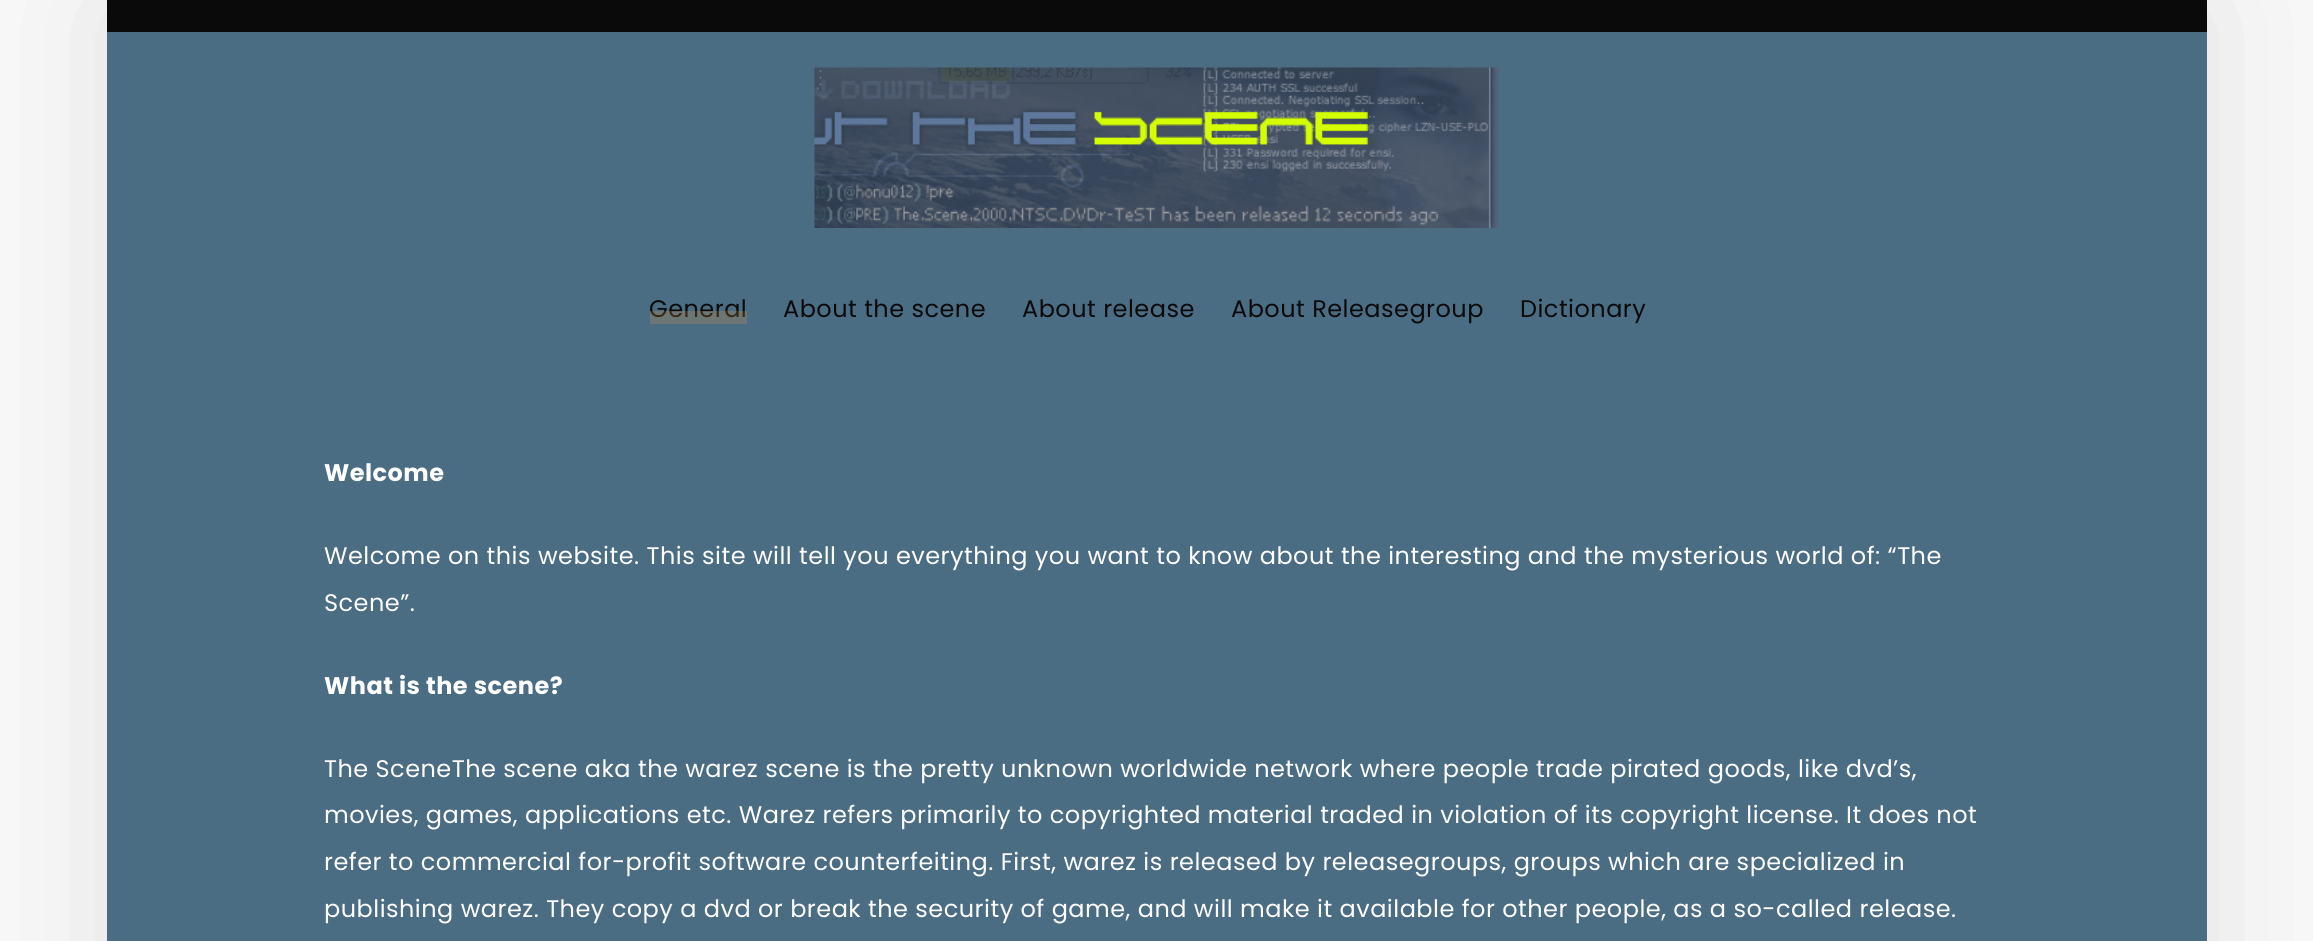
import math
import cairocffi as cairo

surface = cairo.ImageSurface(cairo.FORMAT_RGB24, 2313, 941)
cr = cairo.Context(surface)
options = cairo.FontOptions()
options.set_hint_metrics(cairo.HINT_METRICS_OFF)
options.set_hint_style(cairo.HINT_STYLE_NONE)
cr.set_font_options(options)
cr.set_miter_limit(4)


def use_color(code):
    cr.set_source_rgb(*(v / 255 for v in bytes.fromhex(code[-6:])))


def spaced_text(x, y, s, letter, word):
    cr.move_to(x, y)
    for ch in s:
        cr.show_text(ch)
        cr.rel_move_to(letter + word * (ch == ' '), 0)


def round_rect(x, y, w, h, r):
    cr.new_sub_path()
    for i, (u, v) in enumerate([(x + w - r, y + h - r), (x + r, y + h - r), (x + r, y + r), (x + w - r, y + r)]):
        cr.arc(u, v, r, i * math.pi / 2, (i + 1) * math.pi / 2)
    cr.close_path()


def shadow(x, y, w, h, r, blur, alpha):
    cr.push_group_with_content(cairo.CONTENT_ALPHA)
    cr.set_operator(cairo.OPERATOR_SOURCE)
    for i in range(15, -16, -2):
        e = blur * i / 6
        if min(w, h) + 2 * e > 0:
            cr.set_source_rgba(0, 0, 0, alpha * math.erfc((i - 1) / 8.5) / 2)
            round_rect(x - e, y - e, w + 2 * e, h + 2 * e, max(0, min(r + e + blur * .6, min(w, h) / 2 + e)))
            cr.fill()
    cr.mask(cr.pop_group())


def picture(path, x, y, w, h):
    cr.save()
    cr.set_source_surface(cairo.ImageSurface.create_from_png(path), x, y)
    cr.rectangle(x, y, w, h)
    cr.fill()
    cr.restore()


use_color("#f9f9f9")
cr.paint()
use_color("#646464")
shadow(107, 0, 2100, 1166, 0, 75, 0.15)
use_color("#4a6d84")
cr.rectangle(107, 32, 2100, 909)
cr.fill()
use_color("#0a0a0a")
cr.rectangle(107, 0, 2100, 32)
cr.fill()
picture("img1.png", 814, 67, 685, 161)
cr.select_font_face("Poppins")
cr.set_font_size(24)
spaced_text(649, 317, "General", 0.48, 0)
cr.set_source_rgba(0.969, 0.62, 0.22, 0.2)
cr.rectangle(650, 311, 97, 13)
cr.fill()
use_color("#0a0a0a")
spaced_text(783, 317, "About the scene", 0.48, 0)
spaced_text(1022, 317, "About release", 0.48, 0)
spaced_text(1231, 317, "About Releasegroup", 0.48, 0)
spaced_text(1520, 317, "Dictionary", 0.48, 0)
cr.select_font_face("Poppins", cairo.FONT_SLANT_NORMAL, cairo.FONT_WEIGHT_BOLD)
use_color("#ffffff")
spaced_text(324, 481, "Welcome", 0.48, 0)
cr.select_font_face("Poppins")
spaced_text(324, 564, "Welcome on this website. This site will tell you everything you want to know about the interesting and the mysterious world of: “The", 0.48, 0)
spaced_text(324, 611, "Scene”.", 0.48, 0)
cr.select_font_face("Poppins", cairo.FONT_SLANT_NORMAL, cairo.FONT_WEIGHT_BOLD)
spaced_text(324, 694, "What is the scene?", 0.48, 0)
cr.select_font_face("Poppins")
spaced_text(324, 777, "The SceneThe scene aka the warez scene is the pretty unknown worldwide network where people trade pirated goods, like dvd’s,", 0.48, 0)
spaced_text(324, 823, "movies, games, applications etc. Warez refers primarily to copyrighted material traded in violation of its copyright license. It does not", 0.48, 0)
spaced_text(324, 870, "refer to commercial for-profit software counterfeiting. First, warez is released by releasegroups, groups which are specialized in", 0.48, 0)
spaced_text(324, 917, "publishing warez. They copy a dvd or break the security of game, and will make it available for other people, as a so-called release.", 0.48, 0)
surface.write_to_png("result.png")
